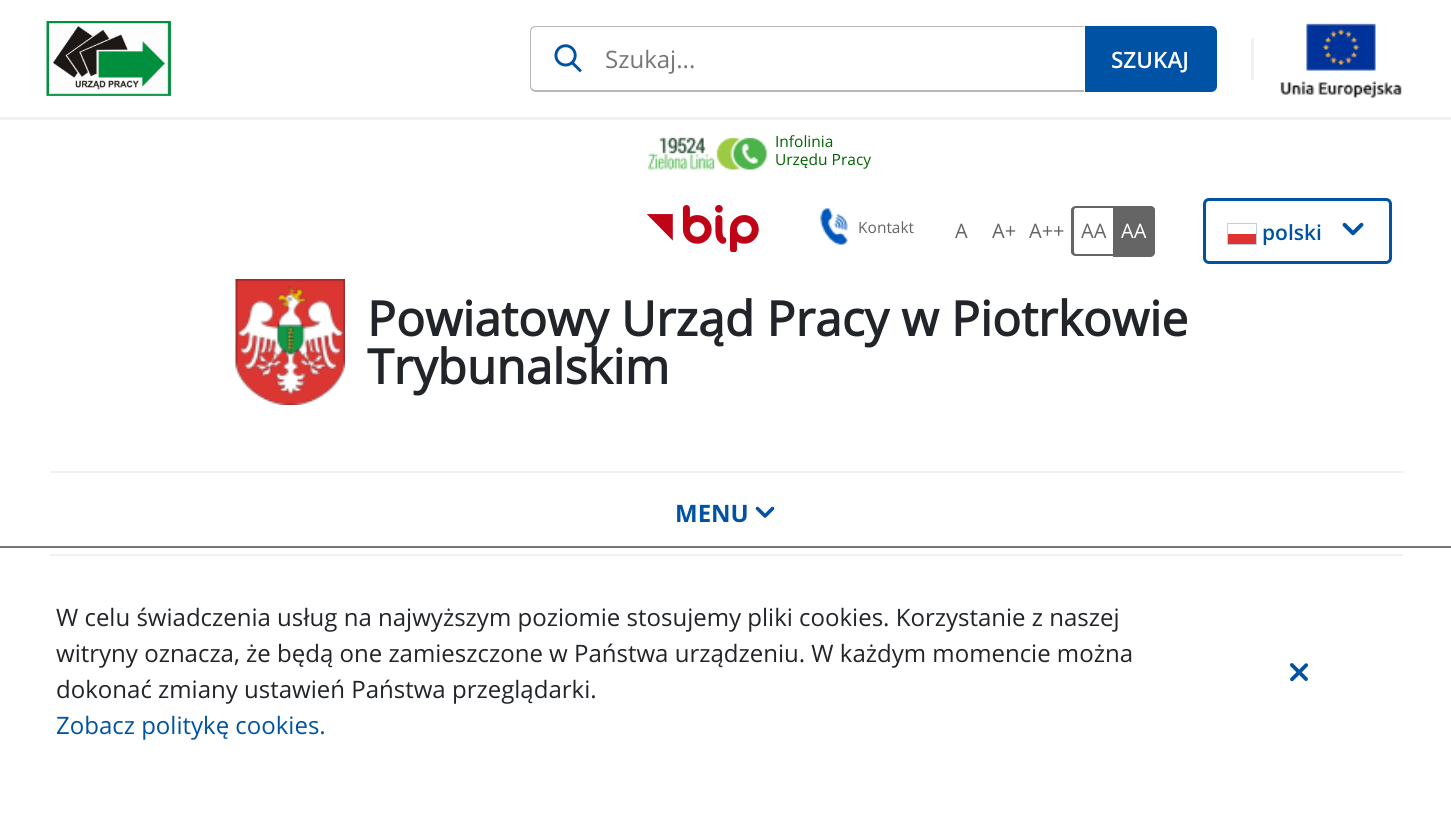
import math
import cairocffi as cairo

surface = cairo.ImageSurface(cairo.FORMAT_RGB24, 1451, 814)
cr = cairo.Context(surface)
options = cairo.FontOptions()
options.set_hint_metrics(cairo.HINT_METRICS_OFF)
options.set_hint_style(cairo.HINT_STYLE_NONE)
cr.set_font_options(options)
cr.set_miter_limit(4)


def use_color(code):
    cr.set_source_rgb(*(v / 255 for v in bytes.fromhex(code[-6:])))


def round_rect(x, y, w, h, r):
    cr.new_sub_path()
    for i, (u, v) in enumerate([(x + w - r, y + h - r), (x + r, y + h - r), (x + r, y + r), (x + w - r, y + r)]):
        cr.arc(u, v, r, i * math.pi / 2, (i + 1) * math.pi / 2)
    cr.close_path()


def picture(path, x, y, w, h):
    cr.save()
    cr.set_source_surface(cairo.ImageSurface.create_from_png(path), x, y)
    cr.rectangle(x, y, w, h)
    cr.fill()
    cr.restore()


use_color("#ffffff")
cr.paint()
use_color("#f1f1f1")
cr.rectangle(0, 117, 1451, 3)
cr.fill()
picture("img1.png", 46, 21, 125, 75)
picture("img2.png", 554, 44, 28, 29)
use_color("#b7b7b7")
cr.set_fill_rule(cairo.FILL_RULE_EVEN_ODD)
cr.new_path()
cr.move_to(536, 26)
cr.line_to(1084, 26)
cr.line_to(1084, 92)
cr.line_to(536, 92)
cr.curve_to(532, 92, 530, 89, 530, 86)
cr.line_to(530, 32)
cr.curve_to(530, 28, 532, 26, 536, 26)
cr.close_path()
cr.move_to(536, 27)
cr.line_to(1084, 27)
cr.line_to(1084, 90)
cr.line_to(536, 90)
cr.curve_to(533, 90, 531, 88, 531, 86)
cr.line_to(531, 32)
cr.curve_to(531, 29, 533, 27, 536, 27)
cr.close_path()
cr.fill()
cr.select_font_face("Open Sans")
cr.set_font_size(24)
use_color("#767676")
cr.move_to(605, 68)
cr.show_text("Szukaj...")
use_color("#0052a5")
cr.new_path()
cr.move_to(1085, 26)
cr.line_to(1211, 26)
cr.curve_to(1214.5, 26, 1217, 28.5, 1217, 32)
cr.line_to(1217, 86)
cr.curve_to(1217, 89.5, 1214.5, 92, 1211, 92)
cr.line_to(1085, 92)
cr.close_path()
cr.fill()
cr.select_font_face("Open Sans SemiBold")
cr.set_font_size(22.5)
use_color("#ffffff")
cr.move_to(1111, 68)
cr.show_text("SZUKAJ")
use_color("#f1f1f1")
cr.rectangle(1251, 38, 3, 42)
cr.fill()
picture("img3.png", 1280, 23, 122, 75)
picture("img4.png", 647, 137, 120, 34)
cr.select_font_face("Open Sans")
cr.set_font_size(15.5)
use_color("#016501")
cr.move_to(775, 147)
cr.show_text("Infolinia")
cr.move_to(775, 165)
cr.show_text("Urzędu Pracy")
picture("img5.png", 647, 205, 112, 47)
picture("img6.png", 820, 208, 28, 37)
use_color("#656565")
cr.move_to(858, 233)
cr.show_text("Kontakt")
cr.set_font_size(20)
cr.move_to(955, 238)
cr.show_text("A")
cr.move_to(992, 238)
cr.show_text("A+")
cr.move_to(1029, 238)
cr.show_text("A++")
cr.new_path()
cr.move_to(1076, 206)
cr.line_to(1113, 206)
cr.line_to(1113, 256)
cr.line_to(1076, 256)
cr.curve_to(1073, 256, 1071, 254, 1071, 252)
cr.line_to(1071, 210)
cr.curve_to(1071, 208, 1073, 206, 1076, 206)
cr.close_path()
cr.move_to(1076, 208)
cr.line_to(1113, 208)
cr.line_to(1113, 254)
cr.line_to(1076, 254)
cr.curve_to(1075, 254, 1074, 253, 1074, 252)
cr.line_to(1074, 210)
cr.curve_to(1074, 209, 1075, 208, 1076, 208)
cr.close_path()
cr.fill()
cr.move_to(1081, 238)
cr.show_text("AA")
cr.new_path()
cr.move_to(1113, 206)
cr.line_to(1150, 206)
cr.curve_to(1153, 206, 1155, 208, 1155, 211)
cr.line_to(1155, 252)
cr.curve_to(1155, 255, 1153, 257, 1150, 257)
cr.line_to(1113, 257)
cr.close_path()
cr.fill()
cr.new_path()
cr.move_to(1113, 206)
cr.line_to(1150, 206)
cr.curve_to(1153, 206, 1155, 208, 1155, 210)
cr.line_to(1155, 252)
cr.curve_to(1155, 254, 1153, 256, 1150, 256)
cr.line_to(1113, 256)
cr.close_path()
cr.move_to(1113, 208)
cr.line_to(1150, 208)
cr.curve_to(1151, 208, 1152, 209, 1152, 210)
cr.line_to(1152, 252)
cr.curve_to(1152, 253, 1151, 254, 1150, 254)
cr.line_to(1113, 254)
cr.close_path()
cr.fill()
use_color("#ffffff")
cr.move_to(1121, 238)
cr.show_text("AA")
round_rect(1204.5, 199.5, 186, 63, 4.5)
use_color("#0052a5")
cr.set_line_width(3)
cr.stroke()
cr.select_font_face("Open Sans SemiBold")
cr.set_font_size(21)
cr.move_to(1262, 240)
cr.show_text("polski")
use_color("#c0cfd8")
cr.rectangle(1227, 223, 30, 22)
cr.fill()
use_color("#ffffff")
cr.rectangle(1228, 224, 28, 10)
cr.fill()
use_color("#e03232")
cr.rectangle(1228, 234, 28, 10)
cr.fill()
picture("img7.png", 1342, 222, 22, 14)
picture("img8.png", 235, 279, 110, 126)
cr.select_font_face("Open Sans", cairo.FONT_SLANT_NORMAL, cairo.FONT_WEIGHT_BOLD)
cr.set_font_size(48)
use_color("#212529")
cr.move_to(367, 336)
cr.show_text("Powiatowy Urząd Pracy w Piotrkowie")
cr.move_to(367, 384)
cr.show_text("Trybunalskim")
use_color("#f1f1f1")
cr.rectangle(50, 471, 1353, 2)
cr.fill()
cr.rectangle(50, 554, 1353, 2)
cr.fill()
cr.select_font_face("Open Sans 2", cairo.FONT_SLANT_NORMAL, cairo.FONT_WEIGHT_BOLD)
cr.set_font_size(24)
use_color("#0052a5")
cr.move_to(675, 522)
cr.show_text("MENU")
picture("img9.png", 755, 506, 20, 12)
use_color("#767676")
cr.rectangle(0, 546, 1451, 2)
cr.fill()
cr.select_font_face("Open Sans")
use_color("#212529")
cr.move_to(56, 626)
cr.show_text("W celu świadczenia usług na najwyższym poziomie stosujemy pliki cookies. Korzystanie z naszej")
cr.move_to(56, 662)
cr.show_text("witryny oznacza, że będą one zamieszczone w Państwa urządzeniu. W każdym momencie można")
cr.move_to(56, 698)
cr.show_text("dokonać zmiany ustawień Państwa przeglądarki.")
use_color("#0052a5")
cr.move_to(56, 734)
cr.show_text("Zobacz politykę cookies.")
picture("img10.png", 1290, 663, 19, 19)
surface.write_to_png("result.png")
